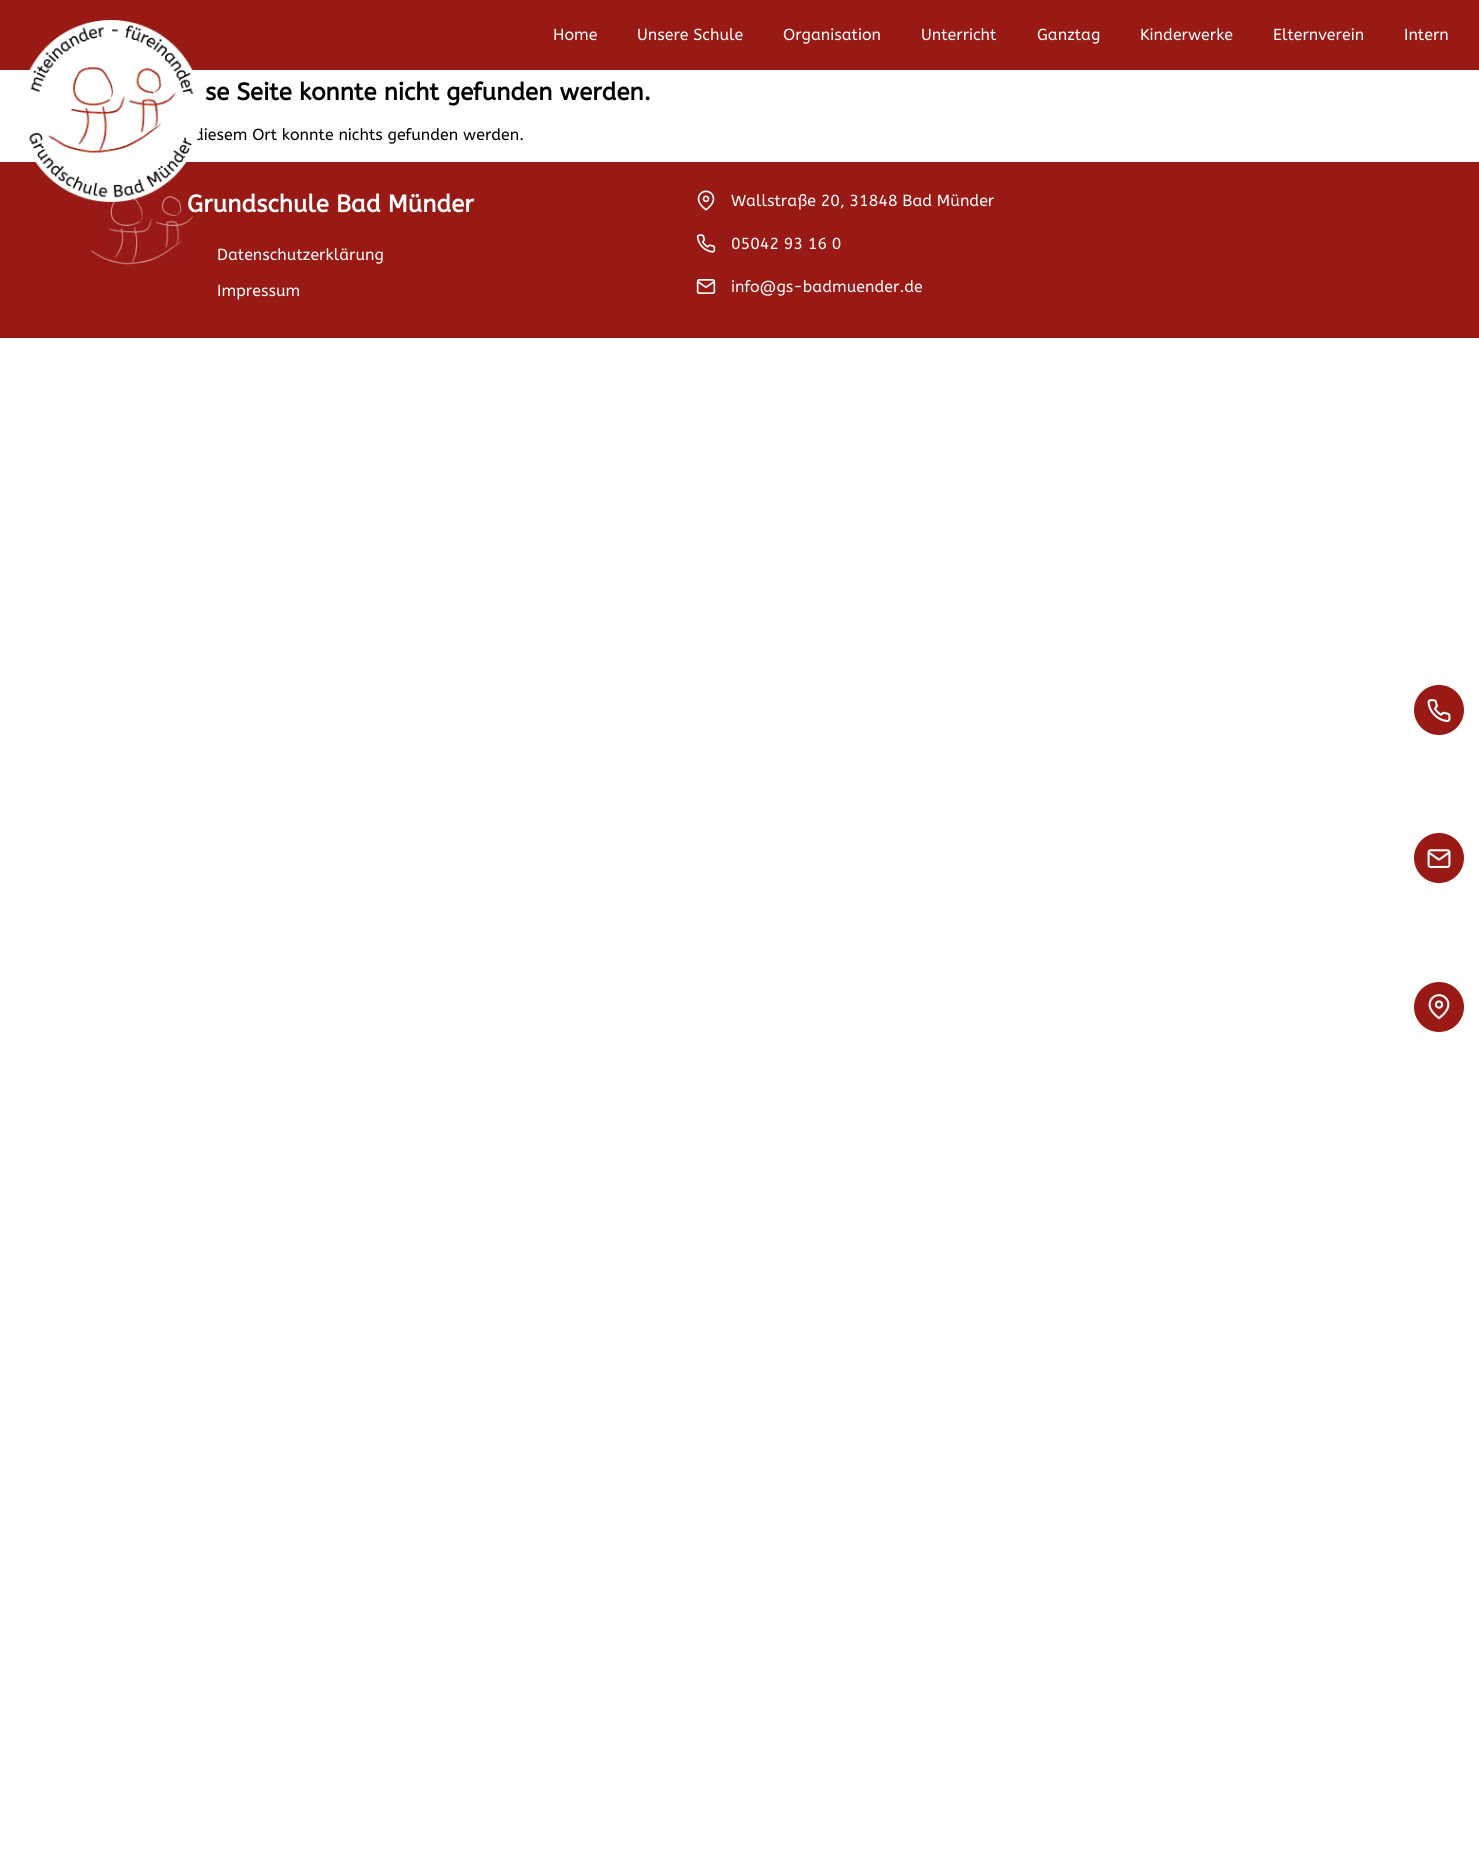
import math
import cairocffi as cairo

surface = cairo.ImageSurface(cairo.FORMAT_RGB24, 1479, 1852)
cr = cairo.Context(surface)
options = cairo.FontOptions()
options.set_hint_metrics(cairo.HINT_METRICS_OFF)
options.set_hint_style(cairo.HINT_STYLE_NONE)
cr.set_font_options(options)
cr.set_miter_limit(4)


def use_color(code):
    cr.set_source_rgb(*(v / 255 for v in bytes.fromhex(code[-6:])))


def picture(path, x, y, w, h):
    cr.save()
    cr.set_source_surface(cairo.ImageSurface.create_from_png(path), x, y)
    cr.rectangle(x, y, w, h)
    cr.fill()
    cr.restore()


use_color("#ffffff")
cr.paint()
use_color("#991915")
cr.rectangle(0, 0, 1479, 70)
cr.fill()
cr.select_font_face("ABeeZee")
cr.set_font_size(16)
use_color("#000000")
cr.move_to(194, 140)
cr.show_text("diesem Ort konnte nichts gefunden werden.")
use_color("#991915")
cr.rectangle(0, 162, 1479, 176)
cr.fill()
picture("img5.png", 90, 195, 104, 70)
cr.select_font_face("ABeeZee", cairo.FONT_SLANT_NORMAL, cairo.FONT_WEIGHT_BOLD)
cr.set_font_size(24)
use_color("#ffffff")
cr.move_to(187, 212)
cr.show_text("Grundschule Bad Münder")
picture("img1.png", 29, 20, 173, 182)
cr.select_font_face("ABeeZee")
cr.set_font_size(16)
cr.move_to(553, 40)
cr.show_text("Home")
cr.move_to(637, 40)
cr.show_text("Unsere Schule")
cr.move_to(783, 40)
cr.show_text("Organisation")
cr.move_to(921, 40)
cr.show_text("Unterricht")
cr.move_to(1037, 40)
cr.show_text("Ganztag")
cr.move_to(1140, 40)
cr.show_text("Kinderwerke")
cr.move_to(1273, 40)
cr.show_text("Elternverein")
cr.move_to(1404, 40)
cr.show_text("Intern")
use_color("#991915")
cr.new_path()
cr.arc(1439, 710, 25, 0, 2 * math.pi)
cr.fill()
picture("img2.png", 1427, 699, 24, 24)
cr.arc(1439, 858, 25, 0, 2 * math.pi)
cr.fill()
picture("img3.png", 1427, 849, 24, 19)
cr.arc(1439, 1007, 25, 0, 2 * math.pi)
cr.fill()
picture("img4.png", 1428, 994, 22, 26)
cr.select_font_face("ABeeZee", cairo.FONT_SLANT_NORMAL, cairo.FONT_WEIGHT_BOLD)
cr.set_font_size(24)
use_color("#000000")
cr.move_to(205, 100)
cr.show_text("se Seite konnte nicht gefunden werden.")
cr.select_font_face("ABeeZee")
cr.set_font_size(16)
use_color("#ffffff")
cr.move_to(217, 260)
cr.show_text("Datenschutzerklärung")
cr.move_to(217, 296)
cr.show_text("Impressum")
picture("img6.png", 697, 190, 18, 21)
cr.move_to(731, 206)
cr.show_text("Wallstraße 20, 31848 Bad Münder")
picture("img7.png", 696, 234, 20, 19)
cr.move_to(731, 249)
cr.show_text("05042 93 16 0")
picture("img8.png", 696, 279, 20, 15)
cr.move_to(731, 292)
cr.show_text("info@gs-badmuender.de")
surface.write_to_png("result.png")
